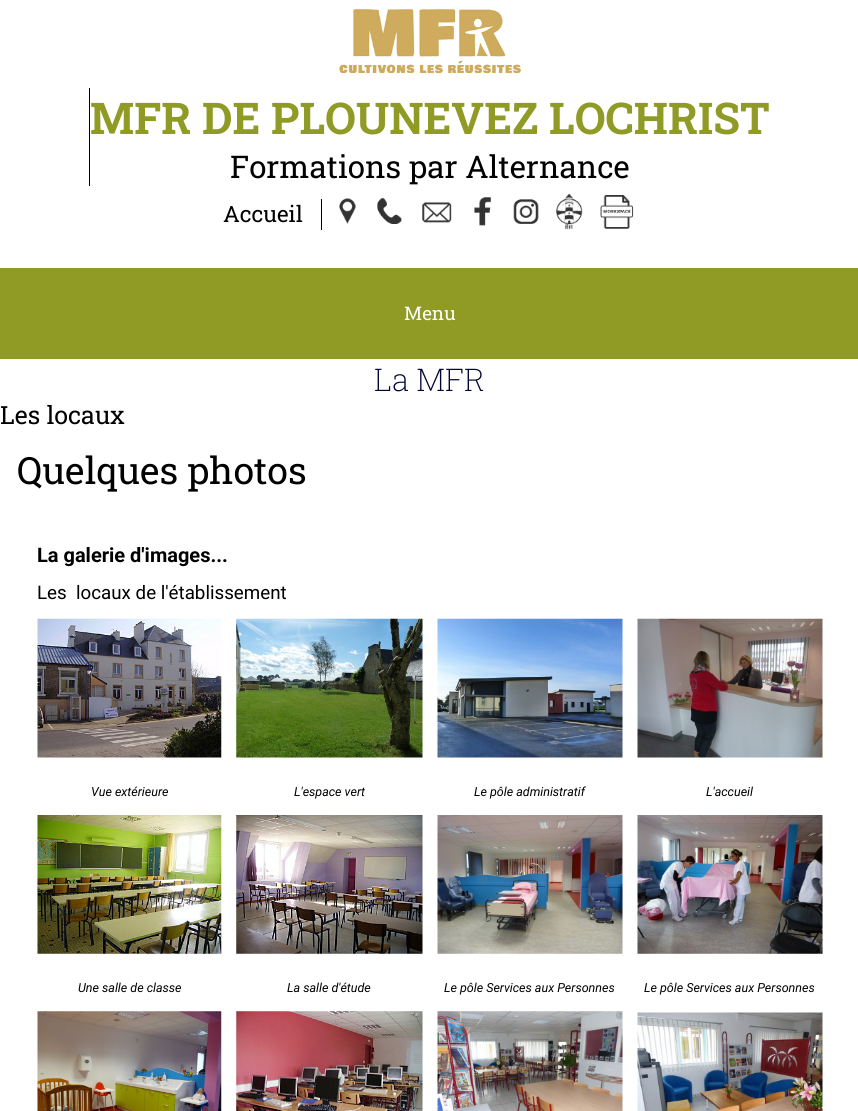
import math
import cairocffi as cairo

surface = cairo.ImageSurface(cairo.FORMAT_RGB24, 858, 1111)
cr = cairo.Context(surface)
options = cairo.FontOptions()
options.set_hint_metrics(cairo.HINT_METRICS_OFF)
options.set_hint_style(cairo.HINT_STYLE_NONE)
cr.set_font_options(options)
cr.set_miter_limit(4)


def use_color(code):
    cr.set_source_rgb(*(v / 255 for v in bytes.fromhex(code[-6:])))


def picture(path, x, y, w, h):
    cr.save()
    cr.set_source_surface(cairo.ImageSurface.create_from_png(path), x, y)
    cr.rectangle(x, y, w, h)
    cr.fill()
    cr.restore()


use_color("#ffffff")
cr.paint()
picture("img1.png", 339, 9, 182, 65)
use_color("#000000")
cr.rectangle(89, 88, 1, 98)
cr.fill()
cr.select_font_face("Roboto Slab", cairo.FONT_SLANT_NORMAL, cairo.FONT_WEIGHT_BOLD)
cr.set_font_size(43.75)
use_color("#909b25")
cr.move_to(90, 134)
cr.show_text("MFR DE PLOUNEVEZ LOCHRIST")
cr.select_font_face("Roboto Slab")
cr.set_font_size(31.25)
use_color("#000000")
cr.move_to(230, 178)
cr.show_text("Formations par Alternance")
cr.rectangle(321, 199, 1, 31)
cr.fill()
cr.set_font_size(22.5)
cr.move_to(223, 222)
cr.show_text("Accueil")
picture("img2.png", 339, 198, 17, 26)
picture("img3.png", 377, 197, 25, 27)
picture("img4.png", 422, 202, 30, 21)
picture("img5.png", 474, 197, 17, 29)
picture("img6.png", 513, 199, 26, 25)
picture("img7.png", 556, 193, 27, 37)
picture("img8.png", 600, 195, 34, 34)
use_color("#909b25")
cr.rectangle(0, 268, 858, 91)
cr.fill()
cr.set_font_size(18.75)
use_color("#ffffff")
cr.move_to(404, 320)
cr.show_text("Menu")
cr.select_font_face("Roboto Slab ExtraLight")
cr.set_font_size(31.25)
use_color("#000333")
cr.move_to(374, 391)
cr.show_text("La MFR")
cr.select_font_face("Roboto Slab")
cr.set_font_size(25)
use_color("#000000")
cr.move_to(0, 424)
cr.show_text("Les locaux")
cr.set_font_size(37.5)
cr.move_to(17, 484)
cr.show_text("Quelques photos")
cr.select_font_face("Roboto", cairo.FONT_SLANT_NORMAL, cairo.FONT_WEIGHT_BOLD)
cr.set_font_size(20)
cr.move_to(37, 562)
cr.show_text("La galerie d'images...")
cr.select_font_face("Roboto")
cr.set_font_size(18.75)
cr.move_to(37, 599)
cr.show_text("Les  locaux de l'établissement")
picture("img9.png", 37, 618, 185, 140)
picture("img10.png", 236, 618, 187, 140)
picture("img11.png", 437, 618, 186, 140)
picture("img12.png", 637, 618, 186, 140)
cr.select_font_face("Roboto", cairo.FONT_SLANT_ITALIC)
cr.set_font_size(12.5)
cr.move_to(91, 796)
cr.show_text("Vue extérieure")
cr.move_to(294, 796)
cr.show_text("L'espace vert")
cr.move_to(474, 796)
cr.show_text("Le pôle administratif")
cr.move_to(706, 796)
cr.show_text("L'accueil")
picture("img13.png", 37, 815, 185, 139)
picture("img14.png", 236, 815, 187, 139)
picture("img15.png", 437, 815, 186, 139)
picture("img16.png", 637, 815, 186, 139)
cr.move_to(78, 992)
cr.show_text("Une salle de classe")
cr.move_to(287, 992)
cr.show_text("La salle d'étude")
cr.move_to(444, 992)
cr.show_text("Le pôle Services aux Personnes")
cr.move_to(644, 992)
cr.show_text("Le pôle Services aux Personnes")
picture("img17.png", 37, 1011, 185, 100)
picture("img18.png", 236, 1011, 187, 100)
picture("img19.png", 437, 1011, 186, 100)
picture("img20.png", 637, 1012, 186, 99)
surface.write_to_png("result.png")
